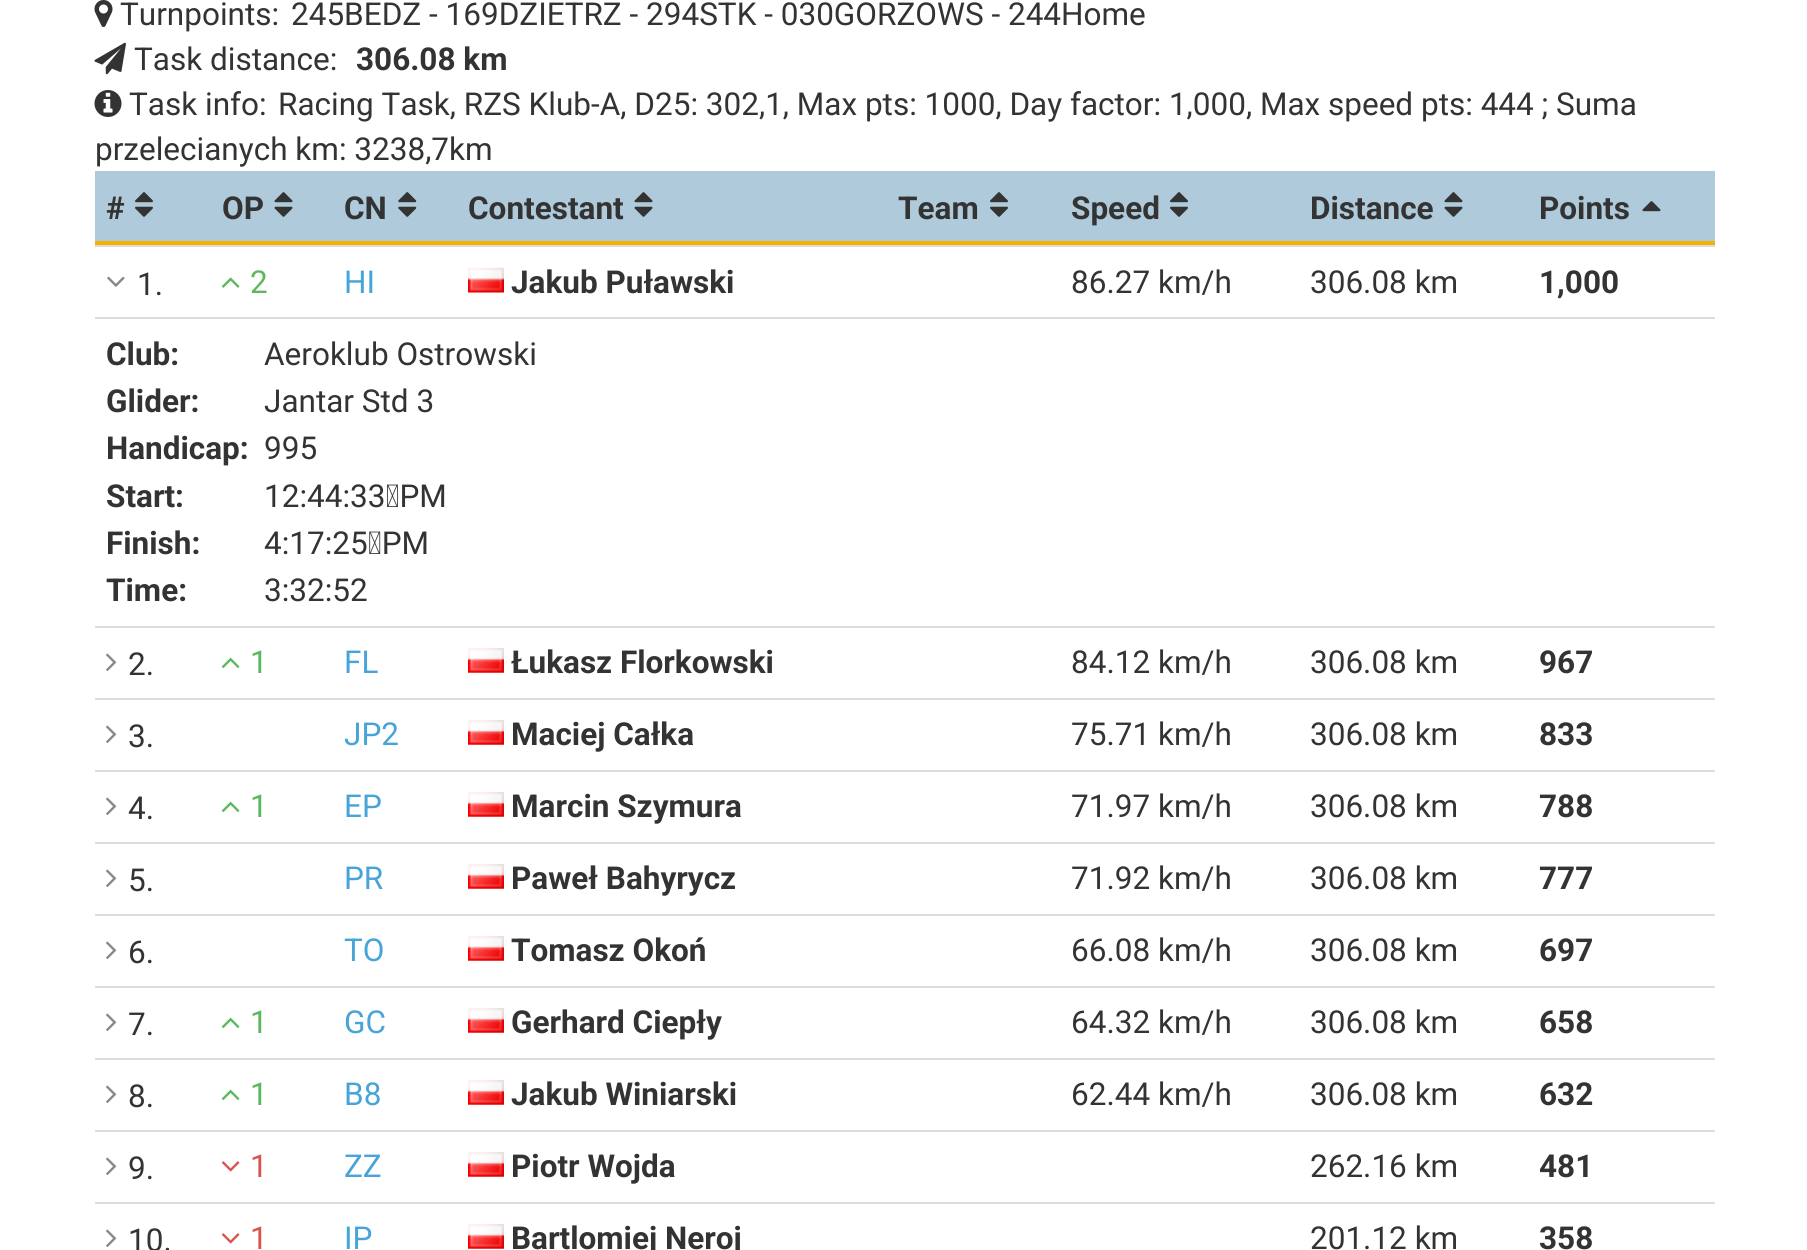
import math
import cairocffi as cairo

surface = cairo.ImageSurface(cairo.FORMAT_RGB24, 1807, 1250)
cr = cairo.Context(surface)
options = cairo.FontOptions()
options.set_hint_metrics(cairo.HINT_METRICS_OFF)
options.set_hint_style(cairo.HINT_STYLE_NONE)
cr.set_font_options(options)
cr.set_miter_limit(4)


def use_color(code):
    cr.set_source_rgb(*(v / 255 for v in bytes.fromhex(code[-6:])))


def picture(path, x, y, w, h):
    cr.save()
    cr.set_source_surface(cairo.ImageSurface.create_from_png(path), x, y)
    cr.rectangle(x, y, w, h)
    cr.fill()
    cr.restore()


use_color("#ffffff")
cr.paint()
picture("img1.png", 94, 0, 19, 27)
cr.select_font_face("Roboto")
cr.set_font_size(31.5)
use_color("#333333")
cr.move_to(120, 25)
cr.show_text("Turnpoints:")
cr.move_to(291, 25)
cr.show_text("245BEDZ - 169DZIETRZ - 294STK - 030GORZOWS - 244Home")
picture("img2.png", 94, 42, 32, 33)
cr.move_to(134, 70)
cr.show_text("Task distance:")
cr.select_font_face("Roboto", cairo.FONT_SLANT_NORMAL, cairo.FONT_WEIGHT_BOLD)
cr.move_to(356, 70)
cr.show_text("306.08 km")
picture("img3.png", 94, 90, 28, 27)
cr.select_font_face("Roboto")
cr.move_to(129, 115)
cr.show_text("Task info:")
cr.move_to(278, 115)
cr.show_text("Racing Task, RZS Klub-A, D25: 302,1, Max pts: 1000, Day factor: 1,000, Max speed pts: 444 ; Suma")
cr.move_to(95, 160)
cr.show_text("przelecianych km: 3238,7km")
use_color("#afcada")
cr.rectangle(95, 171, 1620, 70)
cr.fill()
use_color("#f4b200")
cr.rectangle(95, 241, 1620, 4)
cr.fill()
cr.select_font_face("Roboto", cairo.FONT_SLANT_NORMAL, cairo.FONT_WEIGHT_BOLD)
use_color("#333333")
cr.move_to(106, 219)
cr.show_text("#")
picture("img4.png", 135, 192, 18, 25)
cr.move_to(222, 219)
cr.show_text("OP")
picture("img5.png", 274, 192, 19, 25)
cr.move_to(344, 219)
cr.show_text("CN")
picture("img6.png", 398, 192, 19, 25)
cr.move_to(468, 219)
cr.show_text("Contestant")
picture("img5.png", 634, 192, 19, 25)
cr.move_to(898, 219)
cr.show_text("Team")
picture("img4.png", 990, 192, 18, 25)
cr.move_to(1071, 219)
cr.show_text("Speed")
picture("img4.png", 1170, 192, 18, 25)
cr.move_to(1310, 219)
cr.show_text("Distance")
picture("img5.png", 1444, 192, 19, 25)
cr.move_to(1539, 219)
cr.show_text("Points")
picture("img7.png", 1642, 201, 19, 11)
use_color("#dddddd")
cr.rectangle(95, 245, 1620, 2)
cr.fill()
picture("img8.png", 107, 276, 18, 11)
cr.select_font_face("Roboto")
use_color("#333333")
cr.move_to(137, 295)
cr.show_text("1.")
picture("img9.png", 221, 277, 19, 11)
use_color("#5cb85c")
cr.move_to(250, 293)
cr.show_text("2")
use_color("#47a4d9")
cr.move_to(344, 293)
cr.show_text("HI")
picture("img10.png", 468, 267, 36, 26)
cr.select_font_face("Roboto", cairo.FONT_SLANT_NORMAL, cairo.FONT_WEIGHT_BOLD)
use_color("#333333")
cr.move_to(511, 293)
cr.show_text("Jakub Puławski")
cr.select_font_face("Roboto")
cr.move_to(1071, 293)
cr.show_text("86.27 km/h")
cr.move_to(1310, 293)
cr.show_text("306.08 km")
cr.select_font_face("Roboto", cairo.FONT_SLANT_NORMAL, cairo.FONT_WEIGHT_BOLD)
cr.move_to(1539, 293)
cr.show_text("1,000")
use_color("#dddddd")
cr.rectangle(95, 317, 1620, 2)
cr.fill()
use_color("#333333")
cr.move_to(106, 365)
cr.show_text("Club:")
cr.select_font_face("Roboto")
cr.move_to(264, 365)
cr.show_text("Aeroklub Ostrowski")
cr.select_font_face("Roboto", cairo.FONT_SLANT_NORMAL, cairo.FONT_WEIGHT_BOLD)
cr.move_to(106, 412)
cr.show_text("Glider:")
cr.select_font_face("Roboto")
cr.move_to(264, 412)
cr.show_text("Jantar Std 3")
cr.select_font_face("Roboto", cairo.FONT_SLANT_NORMAL, cairo.FONT_WEIGHT_BOLD)
cr.move_to(106, 459)
cr.show_text("Handicap:")
cr.select_font_face("Roboto")
cr.move_to(264, 459)
cr.show_text("995")
cr.select_font_face("Roboto", cairo.FONT_SLANT_NORMAL, cairo.FONT_WEIGHT_BOLD)
cr.move_to(106, 507)
cr.show_text("Start:")
cr.select_font_face("Roboto")
cr.move_to(264, 507)
cr.show_text("12:44:33 PM")
cr.select_font_face("Roboto", cairo.FONT_SLANT_NORMAL, cairo.FONT_WEIGHT_BOLD)
cr.move_to(106, 554)
cr.show_text("Finish:")
cr.select_font_face("Roboto")
cr.move_to(264, 554)
cr.show_text("4:17:25 PM")
cr.select_font_face("Roboto", cairo.FONT_SLANT_NORMAL, cairo.FONT_WEIGHT_BOLD)
cr.move_to(106, 601)
cr.show_text("Time:")
cr.select_font_face("Roboto")
cr.move_to(264, 601)
cr.show_text("3:32:52")
use_color("#dddddd")
cr.rectangle(95, 626, 1620, 2)
cr.fill()
picture("img11.png", 106, 653, 11, 18)
use_color("#333333")
cr.move_to(128, 675)
cr.show_text("2.")
picture("img12.png", 221, 657, 19, 11)
use_color("#5cb85c")
cr.move_to(250, 673)
cr.show_text("1")
use_color("#47a4d9")
cr.move_to(344, 673)
cr.show_text("FL")
picture("img13.png", 468, 648, 36, 25)
cr.select_font_face("Roboto", cairo.FONT_SLANT_NORMAL, cairo.FONT_WEIGHT_BOLD)
use_color("#333333")
cr.move_to(511, 673)
cr.show_text("Łukasz Florkowski")
cr.select_font_face("Roboto")
cr.move_to(1071, 673)
cr.show_text("84.12 km/h")
cr.move_to(1310, 673)
cr.show_text("306.08 km")
cr.select_font_face("Roboto", cairo.FONT_SLANT_NORMAL, cairo.FONT_WEIGHT_BOLD)
cr.move_to(1539, 673)
cr.show_text("967")
use_color("#dddddd")
cr.rectangle(95, 698, 1620, 2)
cr.fill()
picture("img11.png", 106, 725, 11, 18)
cr.select_font_face("Roboto")
use_color("#333333")
cr.move_to(128, 747)
cr.show_text("3.")
use_color("#47a4d9")
cr.move_to(344, 745)
cr.show_text("JP2")
picture("img13.png", 468, 720, 36, 25)
cr.select_font_face("Roboto", cairo.FONT_SLANT_NORMAL, cairo.FONT_WEIGHT_BOLD)
use_color("#333333")
cr.move_to(511, 745)
cr.show_text("Maciej Całka")
cr.select_font_face("Roboto")
cr.move_to(1071, 745)
cr.show_text("75.71 km/h")
cr.move_to(1310, 745)
cr.show_text("306.08 km")
cr.select_font_face("Roboto", cairo.FONT_SLANT_NORMAL, cairo.FONT_WEIGHT_BOLD)
cr.move_to(1539, 745)
cr.show_text("833")
use_color("#dddddd")
cr.rectangle(95, 770, 1620, 2)
cr.fill()
picture("img11.png", 106, 797, 11, 18)
cr.select_font_face("Roboto")
use_color("#333333")
cr.move_to(128, 819)
cr.show_text("4.")
picture("img12.png", 221, 801, 19, 11)
use_color("#5cb85c")
cr.move_to(250, 817)
cr.show_text("1")
use_color("#47a4d9")
cr.move_to(344, 817)
cr.show_text("EP")
picture("img13.png", 468, 792, 36, 25)
cr.select_font_face("Roboto", cairo.FONT_SLANT_NORMAL, cairo.FONT_WEIGHT_BOLD)
use_color("#333333")
cr.move_to(511, 817)
cr.show_text("Marcin Szymura")
cr.select_font_face("Roboto")
cr.move_to(1071, 817)
cr.show_text("71.97 km/h")
cr.move_to(1310, 817)
cr.show_text("306.08 km")
cr.select_font_face("Roboto", cairo.FONT_SLANT_NORMAL, cairo.FONT_WEIGHT_BOLD)
cr.move_to(1539, 817)
cr.show_text("788")
use_color("#dddddd")
cr.rectangle(95, 842, 1620, 2)
cr.fill()
picture("img11.png", 106, 869, 11, 18)
cr.select_font_face("Roboto")
use_color("#333333")
cr.move_to(128, 891)
cr.show_text("5.")
use_color("#47a4d9")
cr.move_to(344, 889)
cr.show_text("PR")
picture("img14.png", 468, 864, 36, 25)
cr.select_font_face("Roboto", cairo.FONT_SLANT_NORMAL, cairo.FONT_WEIGHT_BOLD)
use_color("#333333")
cr.move_to(511, 889)
cr.show_text("Paweł Bahyrycz")
cr.select_font_face("Roboto")
cr.move_to(1071, 889)
cr.show_text("71.92 km/h")
cr.move_to(1310, 889)
cr.show_text("306.08 km")
cr.select_font_face("Roboto", cairo.FONT_SLANT_NORMAL, cairo.FONT_WEIGHT_BOLD)
cr.move_to(1539, 889)
cr.show_text("777")
use_color("#dddddd")
cr.rectangle(95, 914, 1620, 2)
cr.fill()
picture("img11.png", 106, 941, 11, 18)
cr.select_font_face("Roboto")
use_color("#333333")
cr.move_to(128, 963)
cr.show_text("6.")
use_color("#47a4d9")
cr.move_to(344, 961)
cr.show_text("TO")
picture("img13.png", 468, 936, 36, 25)
cr.select_font_face("Roboto", cairo.FONT_SLANT_NORMAL, cairo.FONT_WEIGHT_BOLD)
use_color("#333333")
cr.move_to(511, 961)
cr.show_text("Tomasz Okoń")
cr.select_font_face("Roboto")
cr.move_to(1071, 961)
cr.show_text("66.08 km/h")
cr.move_to(1310, 961)
cr.show_text("306.08 km")
cr.select_font_face("Roboto", cairo.FONT_SLANT_NORMAL, cairo.FONT_WEIGHT_BOLD)
cr.move_to(1539, 961)
cr.show_text("697")
use_color("#dddddd")
cr.rectangle(95, 986, 1620, 2)
cr.fill()
picture("img11.png", 106, 1013, 11, 18)
cr.select_font_face("Roboto")
use_color("#333333")
cr.move_to(128, 1035)
cr.show_text("7.")
picture("img12.png", 221, 1017, 19, 11)
use_color("#5cb85c")
cr.move_to(250, 1033)
cr.show_text("1")
use_color("#47a4d9")
cr.move_to(344, 1033)
cr.show_text("GC")
picture("img13.png", 468, 1008, 36, 25)
cr.select_font_face("Roboto", cairo.FONT_SLANT_NORMAL, cairo.FONT_WEIGHT_BOLD)
use_color("#333333")
cr.move_to(511, 1033)
cr.show_text("Gerhard Ciepły")
cr.select_font_face("Roboto")
cr.move_to(1071, 1033)
cr.show_text("64.32 km/h")
cr.move_to(1310, 1033)
cr.show_text("306.08 km")
cr.select_font_face("Roboto", cairo.FONT_SLANT_NORMAL, cairo.FONT_WEIGHT_BOLD)
cr.move_to(1539, 1033)
cr.show_text("658")
use_color("#dddddd")
cr.rectangle(95, 1058, 1620, 2)
cr.fill()
picture("img11.png", 106, 1085, 11, 18)
cr.select_font_face("Roboto")
use_color("#333333")
cr.move_to(128, 1107)
cr.show_text("8.")
picture("img12.png", 221, 1089, 19, 11)
use_color("#5cb85c")
cr.move_to(250, 1105)
cr.show_text("1")
use_color("#47a4d9")
cr.move_to(344, 1105)
cr.show_text("B8")
picture("img13.png", 468, 1080, 36, 25)
cr.select_font_face("Roboto", cairo.FONT_SLANT_NORMAL, cairo.FONT_WEIGHT_BOLD)
use_color("#333333")
cr.move_to(511, 1105)
cr.show_text("Jakub Winiarski")
cr.select_font_face("Roboto")
cr.move_to(1071, 1105)
cr.show_text("62.44 km/h")
cr.move_to(1310, 1105)
cr.show_text("306.08 km")
cr.select_font_face("Roboto", cairo.FONT_SLANT_NORMAL, cairo.FONT_WEIGHT_BOLD)
cr.move_to(1539, 1105)
cr.show_text("632")
use_color("#dddddd")
cr.rectangle(95, 1130, 1620, 2)
cr.fill()
picture("img11.png", 106, 1157, 11, 18)
cr.select_font_face("Roboto")
use_color("#333333")
cr.move_to(128, 1179)
cr.show_text("9.")
picture("img15.png", 221, 1161, 19, 11)
use_color("#d9534f")
cr.move_to(250, 1177)
cr.show_text("1")
use_color("#47a4d9")
cr.move_to(344, 1177)
cr.show_text("ZZ")
picture("img13.png", 468, 1152, 36, 25)
cr.select_font_face("Roboto", cairo.FONT_SLANT_NORMAL, cairo.FONT_WEIGHT_BOLD)
use_color("#333333")
cr.move_to(511, 1177)
cr.show_text("Piotr Wojda")
cr.select_font_face("Roboto")
cr.move_to(1310, 1177)
cr.show_text("262.16 km")
cr.select_font_face("Roboto", cairo.FONT_SLANT_NORMAL, cairo.FONT_WEIGHT_BOLD)
cr.move_to(1539, 1177)
cr.show_text("481")
use_color("#dddddd")
cr.rectangle(95, 1202, 1620, 2)
cr.fill()
picture("img11.png", 106, 1229, 11, 18)
cr.select_font_face("Roboto")
use_color("#333333")
cr.move_to(128, 1251)
cr.show_text("10.")
picture("img15.png", 221, 1233, 19, 11)
use_color("#d9534f")
cr.move_to(250, 1249)
cr.show_text("1")
use_color("#47a4d9")
cr.move_to(344, 1249)
cr.show_text("IP")
picture("img13.png", 468, 1224, 36, 25)
cr.select_font_face("Roboto", cairo.FONT_SLANT_NORMAL, cairo.FONT_WEIGHT_BOLD)
use_color("#333333")
cr.move_to(511, 1249)
cr.show_text("Bartlomiej Neroj")
cr.select_font_face("Roboto")
cr.move_to(1310, 1249)
cr.show_text("201.12 km")
cr.select_font_face("Roboto", cairo.FONT_SLANT_NORMAL, cairo.FONT_WEIGHT_BOLD)
cr.move_to(1539, 1249)
cr.show_text("358")
surface.write_to_png("result.png")
